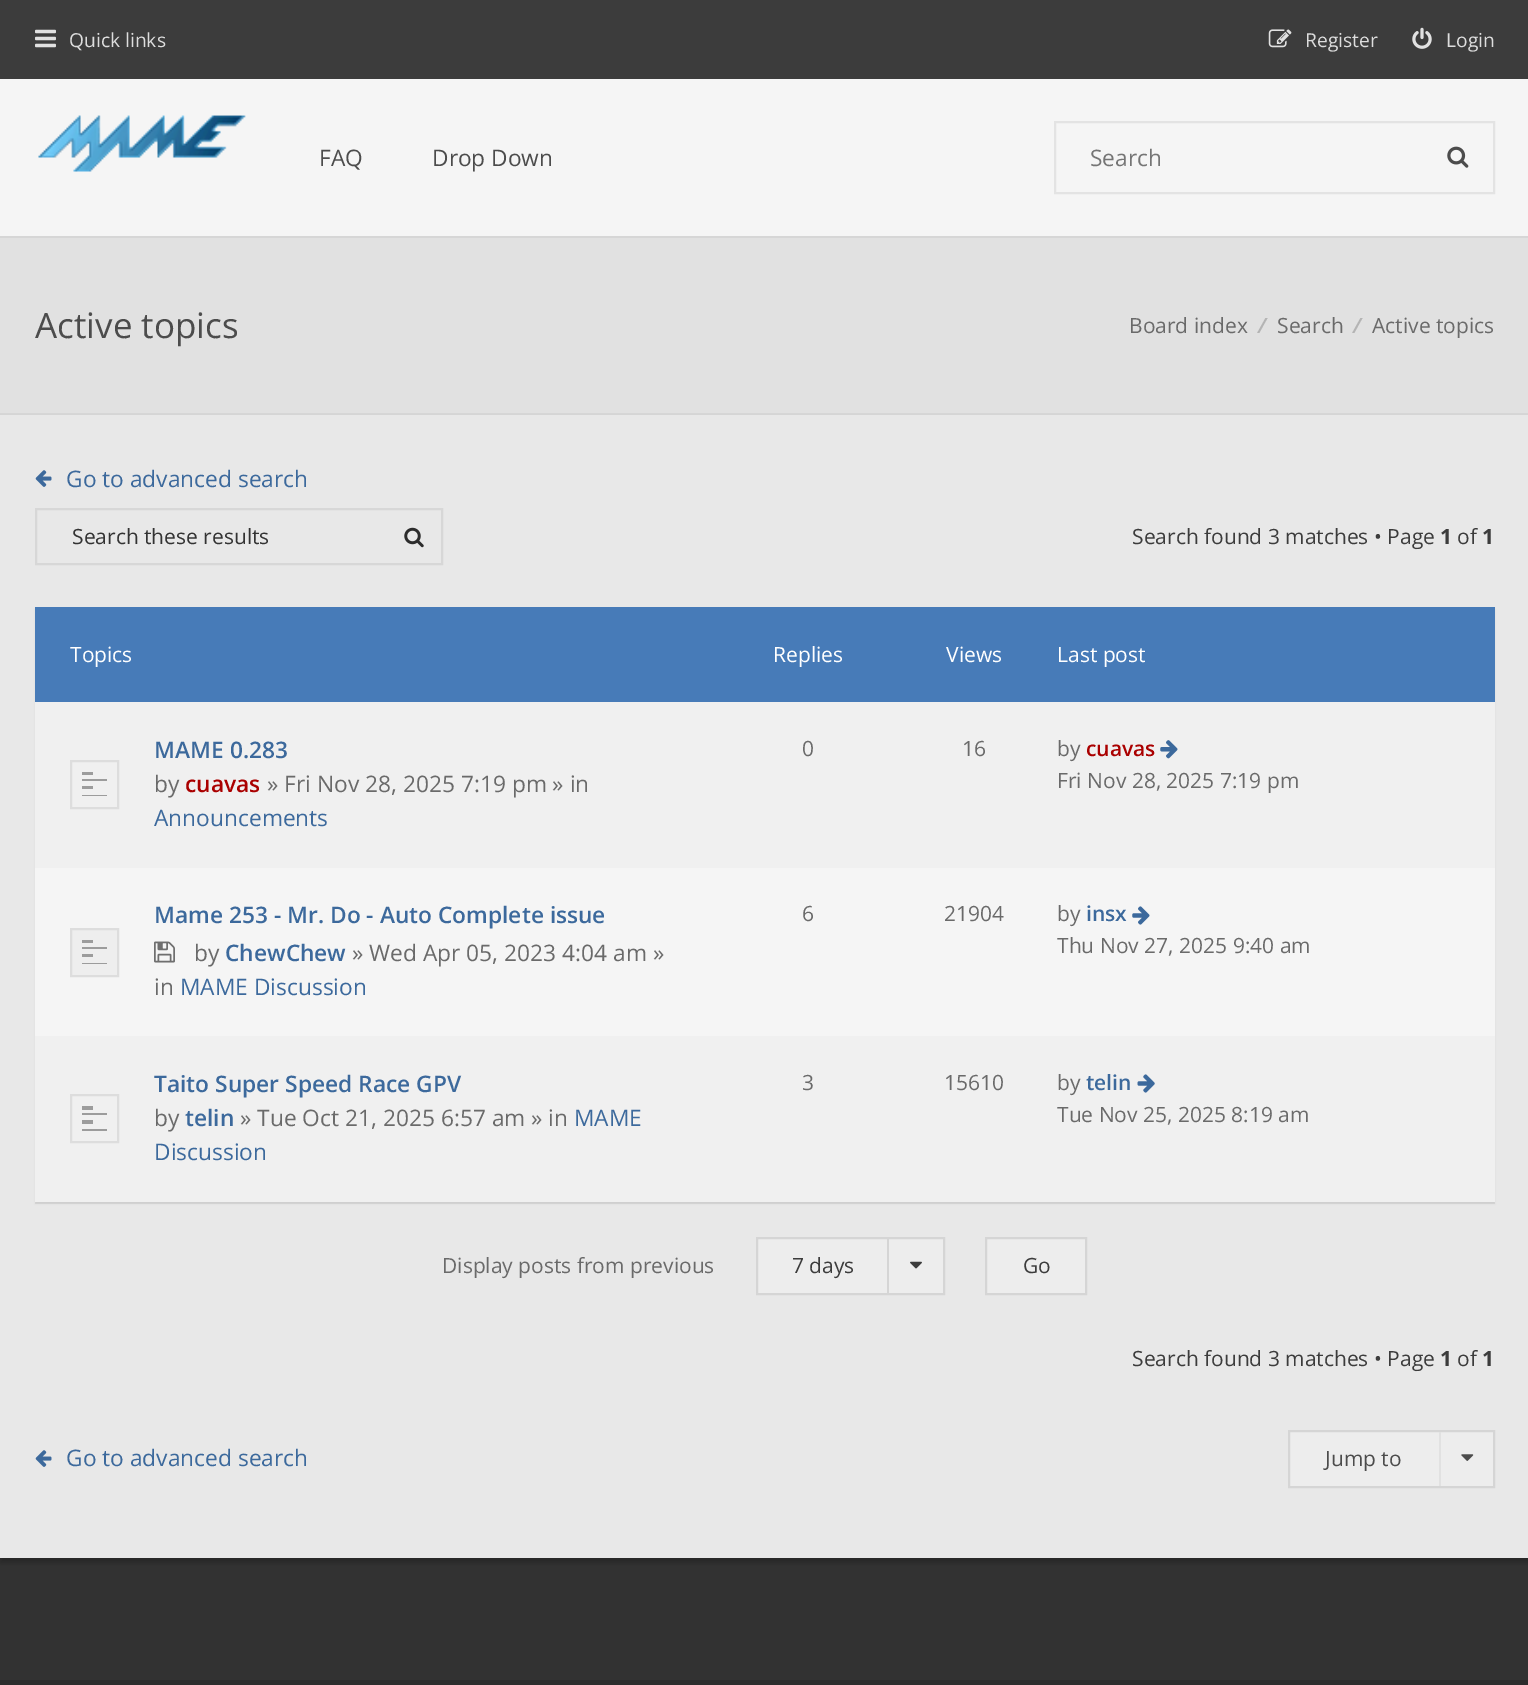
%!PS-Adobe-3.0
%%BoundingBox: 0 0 1528 1685
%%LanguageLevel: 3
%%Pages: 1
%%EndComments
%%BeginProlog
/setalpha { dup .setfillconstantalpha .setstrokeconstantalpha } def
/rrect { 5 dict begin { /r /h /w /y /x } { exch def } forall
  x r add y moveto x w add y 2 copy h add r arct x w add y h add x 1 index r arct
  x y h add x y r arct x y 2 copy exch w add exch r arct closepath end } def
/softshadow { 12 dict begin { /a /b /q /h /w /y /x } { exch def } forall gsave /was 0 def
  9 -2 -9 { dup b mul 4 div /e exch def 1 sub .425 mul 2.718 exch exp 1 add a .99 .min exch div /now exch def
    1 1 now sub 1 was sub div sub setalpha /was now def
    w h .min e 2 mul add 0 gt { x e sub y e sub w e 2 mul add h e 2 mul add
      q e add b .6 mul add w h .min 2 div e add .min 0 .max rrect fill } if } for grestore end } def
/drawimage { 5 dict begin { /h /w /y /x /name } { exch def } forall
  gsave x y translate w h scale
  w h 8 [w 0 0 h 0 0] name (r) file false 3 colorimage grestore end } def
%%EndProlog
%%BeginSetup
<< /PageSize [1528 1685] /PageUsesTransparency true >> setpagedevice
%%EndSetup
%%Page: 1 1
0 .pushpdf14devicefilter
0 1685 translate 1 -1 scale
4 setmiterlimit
0.91 setgray
0 0 1528 1685 rectfill
0.235 setgray
0 0 1528 79 rectfill
(images/1.raw) 35 29 21 19 drawimage
(images/2.raw) 1268 29 24 19 drawimage
(images/3.raw) 1412 27 20 22 drawimage
0.961 setgray
0 79 1528 157 rectfill
(images/4.raw) 38 115 208 57 drawimage
0.89 setgray
2 setlinewidth
1055 122 439 71 rectstroke
(images/5.raw) 1447 146 22 22 drawimage
0.882 setgray
0 238 1528 175 rectfill
0.839 setgray
0 236 1528 2 rectfill
0 413 1528 2 rectfill
0.196 setgray
0 1558 1528 122 rectfill
gsave
newpath 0 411 moveto 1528 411 lineto 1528 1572 lineto 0 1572 lineto closepath 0 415 moveto 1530 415 lineto 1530 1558 lineto 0 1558 lineto closepath eoclip newpath
0 setgray
0 420 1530 1143 0 2.5 0.2 softshadow
grestore
(images/6.raw) 35 470 17 17 drawimage
0.843 setgray
36 509 406 55 rectstroke
(images/7.raw) 404 527 20 21 drawimage
0.863 setgray
newpath 35 1202 moveto 35 1204 lineto 1495 1204 lineto 1495 609 lineto 1494 609 lineto 1494 1202 lineto closepath fill
0 setgray
35 609 1460 595 0 1 0.05 softshadow
0.278 0.482 0.722 setrgbcolor
35 607 1460 95 rectfill
0.941 setgray
35 702 1460 166 rectfill
0.867 setgray
71 761 47 47 rectstroke
0.612 setgray
82 772 11 3 rectfill
82 779 25 2 rectfill
82 795 25 1 rectfill
82 786 11 3 rectfill
(images/8.raw) 1160 740 18 19 drawimage
0.961 setgray
35 868 1460 168 rectfill
0.933 setgray
newpath 71 929 moveto 118 929 lineto 118 976 lineto 71 976 lineto closepath gsave fill grestore
0.867 setgray
stroke
0.612 setgray
82 940 11 3 rectfill
82 947 25 2 rectfill
82 963 25 1 rectfill
82 954 11 3 rectfill
(images/9.raw) 154 941 21 22 drawimage
(images/10.raw) 1132 906 18 19 drawimage
0.941 setgray
35 1036 1460 166 rectfill
0.867 setgray
71 1095 47 47 rectstroke
0.612 setgray
82 1106 11 4 rectfill
82 1113 25 2 rectfill
82 1129 25 2 rectfill
82 1120 11 4 rectfill
(images/11.raw) 1137 1074 18 19 drawimage
0.929 setgray
newpath 757 1238 moveto 944 1238 lineto 944 1294 lineto 757 1294 lineto closepath gsave fill grestore
0.835 setgray
stroke
887 1239 2 54 rectfill
(images/12.raw) 910 1261 12 8 drawimage
0.929 setgray
newpath 986 1238 moveto 1086 1238 lineto 1086 1294 lineto 986 1294 lineto closepath gsave fill grestore
0.835 setgray
stroke
(images/13.raw) 35 1450 17 17 drawimage
0.929 setgray
newpath 1289 1431 moveto 1494 1431 lineto 1494 1487 lineto 1289 1487 lineto closepath gsave fill grestore
0.835 setgray
stroke
0.882 setgray
1439 1432 2 54 rectfill
(images/14.raw) 1461 1454 13 7 drawimage
0.173 setgray
0 1680 1528 5 rectfill
/OpenSans-Regular [19.25 0 0 -19.25 0 0] selectfont
0.867 setgray
69 47 moveto (Quick links) show
1305 47 moveto (Register) show
1446 47 moveto (Login) show
/OpenSans-Regular [22.75 0 0 -22.75 0 0] selectfont
0.298 setgray
319 166 moveto (FAQ) show
432 166 moveto (Drop Down) show
0.459 setgray
1090 166 moveto (Search) show
/OpenSans-Regular [35 0 0 -35 0 0] selectfont
0.298 setgray
35 338 moveto (Active topics) show
/OpenSans-Regular [21 0 0 -21 0 0] selectfont
0.416 setgray
1129 333 moveto (Board index) show
/OpenSans-Bold [21 0 0 -21 0 0] selectfont
0.706 setgray
1261 333 moveto (⁄) show
/OpenSans-Regular [21 0 0 -21 0 0] selectfont
0.416 setgray
1277 333 moveto (Search) show
/OpenSans-Bold [21 0 0 -21 0 0] selectfont
0.706 setgray
1356 333 moveto (⁄) show
/OpenSans-Regular [21 0 0 -21 0 0] selectfont
0.416 setgray
1372 333 moveto (Active topics) show
/OpenSans-Regular [22.75 0 0 -22.75 0 0] selectfont
0.235 0.412 0.612 setrgbcolor
66 487 moveto (Go to advanced search) show
/OpenSans-Regular [21 0 0 -21 0 0] selectfont
0.2 setgray
72 544 moveto (Search these results) show
0.235 setgray
1132 544 moveto (Search found 3 matches • Page) show
/OpenSans-Bold [21 0 0 -21 0 0] selectfont
1440 544 moveto (1) show
/OpenSans-Regular [21 0 0 -21 0 0] selectfont
1457 544 moveto (of) show
/OpenSans-Bold [21 0 0 -21 0 0] selectfont
1482 544 moveto (1) show
/OpenSans-Regular [21 0 0 -21 0 0] selectfont
1 setgray
70 662 moveto (Topics) show
773 662 moveto (Replies) show
946 662 moveto (Views) show
1057 662 moveto (Last post) show
/OpenSans-SemiBold [22.75 0 0 -22.75 0 0] selectfont
0.235 0.412 0.612 setrgbcolor
154 758 moveto (MAME 0.283) show
/OpenSans-Regular [22.75 0 0 -22.75 0 0] selectfont
0.416 setgray
154 792 moveto (by) show
/OpenSans-SemiBold [22.75 0 0 -22.75 0 0] selectfont
0.667 0 0 setrgbcolor
185 792 moveto (cuavas) show
/OpenSans-Regular [22.75 0 0 -22.75 0 0] selectfont
0.416 setgray
267 792 moveto (» Fri Nov 28, 2025 7:19 pm » in) show
0.235 0.412 0.612 setrgbcolor
154 826 moveto (Announcements) show
/OpenSans-Regular [21 0 0 -21 0 0] selectfont
0.416 setgray
802 756 moveto (0) show
962 756 moveto (16) show
1057 756 moveto (by) show
/OpenSans-SemiBold [21 0 0 -21 0 0] selectfont
0.667 0 0 setrgbcolor
1086 756 moveto (cuavas) show
/OpenSans-Regular [21 0 0 -21 0 0] selectfont
0.416 setgray
1057 788 moveto (Fri Nov 28, 2025 7:19 pm) show
/OpenSans-SemiBold [22.75 0 0 -22.75 0 0] selectfont
0.235 0.412 0.612 setrgbcolor
154 923 moveto (Mame 253 - Mr. Do - Auto Complete issue) show
/OpenSans-Regular [22.75 0 0 -22.75 0 0] selectfont
0.416 setgray
194 961 moveto (by) show
/OpenSans-SemiBold [22.75 0 0 -22.75 0 0] selectfont
0.235 0.412 0.612 setrgbcolor
225 961 moveto (ChewChew) show
/OpenSans-Regular [22.75 0 0 -22.75 0 0] selectfont
0.416 setgray
352 961 moveto (» Wed Apr 05, 2023 4:04 am ») show
154 995 moveto (in) show
0.235 0.412 0.612 setrgbcolor
180 995 moveto (MAME Discussion) show
/OpenSans-Regular [21 0 0 -21 0 0] selectfont
0.416 setgray
802 921 moveto (6) show
944 921 moveto (21904) show
1057 921 moveto (by) show
/OpenSans-SemiBold [21 0 0 -21 0 0] selectfont
0.235 0.412 0.612 setrgbcolor
1086 921 moveto (insx) show
/OpenSans-Regular [21 0 0 -21 0 0] selectfont
0.416 setgray
1057 953 moveto (Thu Nov 27, 2025 9:40 am) show
/OpenSans-SemiBold [22.75 0 0 -22.75 0 0] selectfont
0.235 0.412 0.612 setrgbcolor
154 1092 moveto (Taito Super Speed Race GPV) show
/OpenSans-Regular [22.75 0 0 -22.75 0 0] selectfont
0.416 setgray
154 1126 moveto (by) show
/OpenSans-SemiBold [22.75 0 0 -22.75 0 0] selectfont
0.235 0.412 0.612 setrgbcolor
185 1126 moveto (telin) show
/OpenSans-Regular [22.75 0 0 -22.75 0 0] selectfont
0.416 setgray
240 1126 moveto (» Tue Oct 21, 2025 6:57 am » in) show
0.235 0.412 0.612 setrgbcolor
574 1126 moveto (MAME) show
154 1160 moveto (Discussion) show
/OpenSans-Regular [21 0 0 -21 0 0] selectfont
0.416 setgray
802 1090 moveto (3) show
944 1090 moveto (15610) show
1057 1090 moveto (by) show
/OpenSans-SemiBold [21 0 0 -21 0 0] selectfont
0.235 0.412 0.612 setrgbcolor
1086 1090 moveto (telin) show
/OpenSans-Regular [21 0 0 -21 0 0] selectfont
0.416 setgray
1057 1122 moveto (Tue Nov 25, 2025 8:19 am) show
442 1273 moveto (Display posts from previous) show
0.235 setgray
792 1273 moveto (7 days) show
1023 1273 moveto (Go) show
1132 1366 moveto (Search found 3 matches • Page) show
/OpenSans-Bold [21 0 0 -21 0 0] selectfont
1440 1366 moveto (1) show
/OpenSans-Regular [21 0 0 -21 0 0] selectfont
1457 1366 moveto (of) show
/OpenSans-Bold [21 0 0 -21 0 0] selectfont
1482 1366 moveto (1) show
/OpenSans-Regular [22.75 0 0 -22.75 0 0] selectfont
0.235 0.412 0.612 setrgbcolor
66 1466 moveto (Go to advanced search) show
/OpenSans-Regular [21 0 0 -21 0 0] selectfont
0.298 setgray
1325 1466 moveto (Jump to) show
.poppdf14devicefilter showpage
%%EOF
